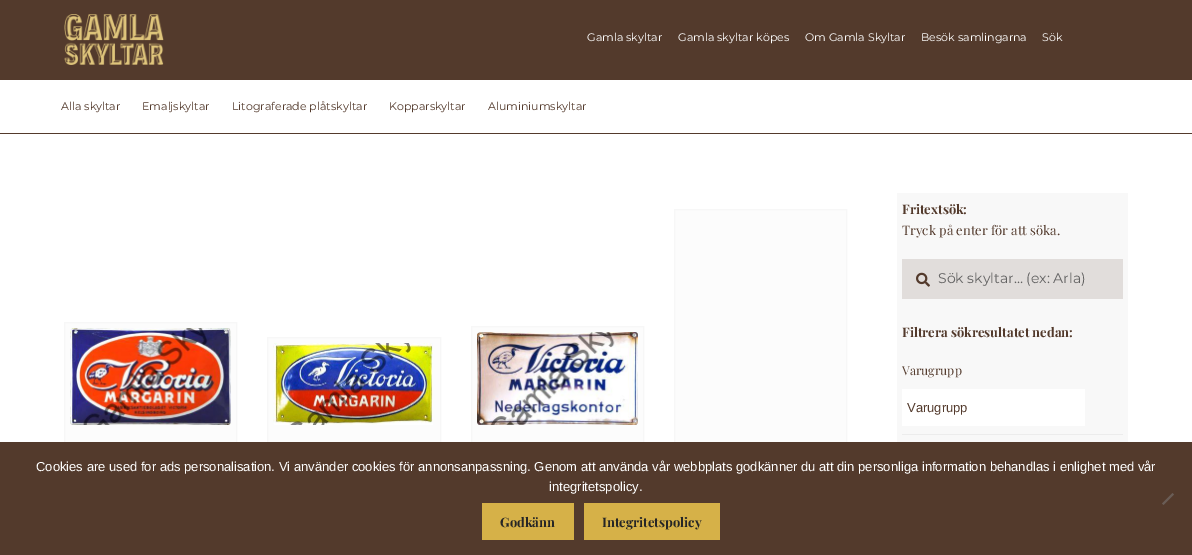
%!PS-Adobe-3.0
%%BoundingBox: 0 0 1192 555
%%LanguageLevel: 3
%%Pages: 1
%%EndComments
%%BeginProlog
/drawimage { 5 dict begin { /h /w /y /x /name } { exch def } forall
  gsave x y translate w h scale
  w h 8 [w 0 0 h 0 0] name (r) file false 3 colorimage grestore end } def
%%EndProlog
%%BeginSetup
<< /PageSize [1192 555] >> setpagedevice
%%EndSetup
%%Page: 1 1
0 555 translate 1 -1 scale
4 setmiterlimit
1 setgray
0 0 1192 555 rectfill
0.325 0.227 0.173 setrgbcolor
0 0 1192 80 rectfill
(images/1.raw) 64 14 100 51 drawimage
0 133 1192 1 rectfill
0.988 setgray
65 323 171 119 rectfill
0.969 setgray
64.5 322.5 172 147 rectstroke
(images/2.raw) 70 328 161 97 drawimage
0.988 setgray
268 338 172 104 rectfill
0.969 setgray
267.5 337.5 173 132 rectstroke
(images/3.raw) 273 343 160 82 drawimage
0.988 setgray
472 327 171 115 rectfill
0.969 setgray
471.5 326.5 172 143 rectstroke
(images/4.raw) 477 332 161 93 drawimage
0.988 setgray
675 210 171 232 rectfill
0.969 setgray
674.5 209.5 172 260 rectstroke
0.973 setgray
897 193 231 249 rectfill
0.882 0.867 0.859 setrgbcolor
902 259 221 40 rectfill
(images/5.raw) 916 272 14 15 drawimage
0.925 setgray
902 434 221 1 rectfill
1 setgray
902 389 183 37 rectfill
0.325 0.227 0.173 setrgbcolor
0 442 1192 113 rectfill
0.416 0.365 0.337 setrgbcolor
newpath 1172.5 493 moveto 1174 494.5 lineto 1163.5 505 lineto 1162 503.5 lineto closepath fill
0.839 0.694 0.282 setrgbcolor
482 503 92 37 rectfill
584 503 136 37 rectfill
/Montserrat-Regular [11 0 0 -11 0 0] selectfont
1 setgray
587 41 moveto (Gamla skyltar) show
678 41 moveto (Gamla skyltar köpes) show
805 41 moveto (Om Gamla Skyltar) show
921 41 moveto (Besök samlingarna) show
1042 41 moveto (Sök) show
0.325 0.227 0.173 setrgbcolor
61 110 moveto (Alla skyltar) show
142 110 moveto (Emaljskyltar) show
232 110 moveto (Litograferade plåtskyltar) show
389 110 moveto (Kopparskyltar) show
488 110 moveto (Aluminiumskyltar) show
/PlayfairDisplay-Bold [13 0 0 -13 0 0] selectfont
902 214 moveto (Fritextsök:) show
/PlayfairDisplay-Regular [13 0 0 -13 0 0] selectfont
902 235 moveto (Tryck på enter för att söka.) show
/Montserrat-Regular [14 0 0 -14 0 0] selectfont
0.38 setgray
938 283 moveto (Sök skyltar… \(ex: Arla\)) show
/PlayfairDisplay-Bold [13 0 0 -13 0 0] selectfont
0.325 0.227 0.173 setrgbcolor
902 337 moveto (Filtrera sökresultatet nedan:) show
/PlayfairDisplay-Regular [12.25 0 0 -12.25 0 0] selectfont
902 375 moveto (Varugrupp) show
/LiberationSans-Regular [13 0 0 -13 0 0] selectfont
907 412 moveto (Varugrupp) show
1 setgray
36 471 moveto (Cookies are used for ads personalisation. Vi använder cookies för annonsanpassning. Genom att använda vår webbplats godkänner du att din personliga information behandlas i enlighet med vår) show
549 491 moveto (integritetspolicy.) show
/PlayfairDisplay-Bold [13 0 0 -13 0 0] selectfont
0.149 setgray
500 527 moveto (Godkänn) show
602 527 moveto (Integritetspolicy) show
showpage
%%EOF
